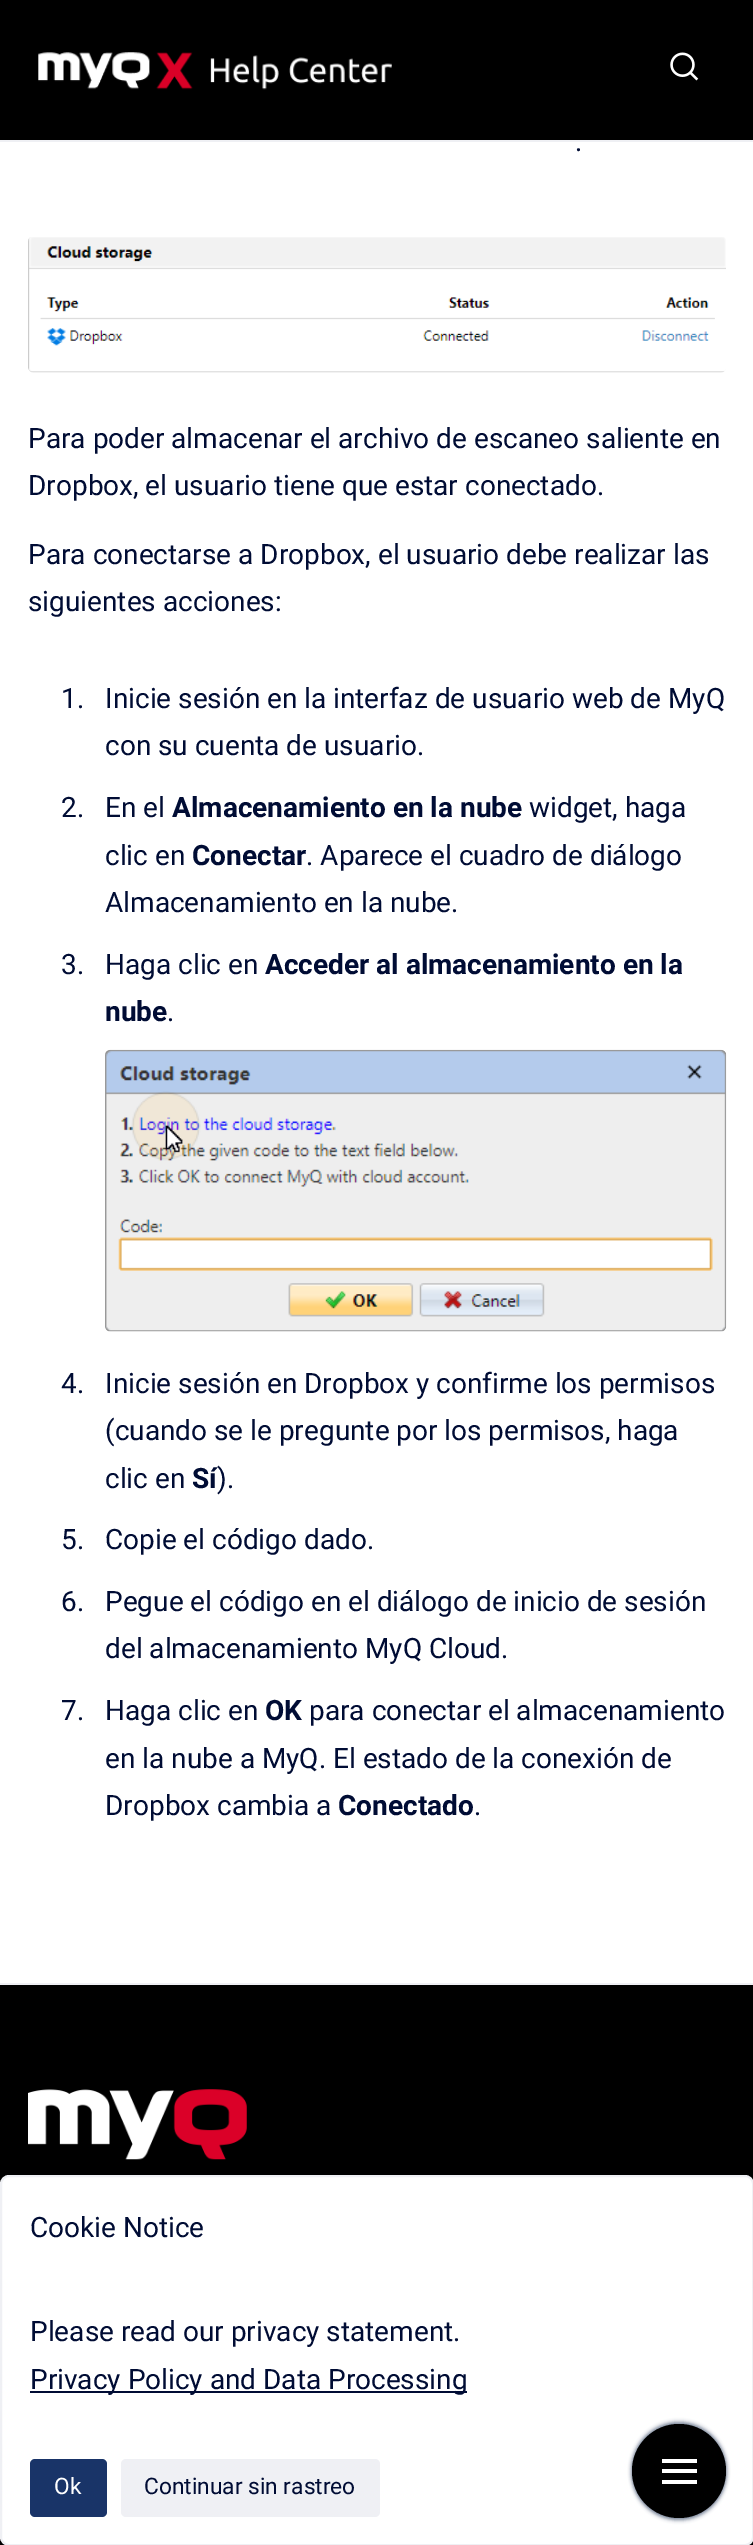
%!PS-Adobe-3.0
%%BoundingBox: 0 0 753 2545
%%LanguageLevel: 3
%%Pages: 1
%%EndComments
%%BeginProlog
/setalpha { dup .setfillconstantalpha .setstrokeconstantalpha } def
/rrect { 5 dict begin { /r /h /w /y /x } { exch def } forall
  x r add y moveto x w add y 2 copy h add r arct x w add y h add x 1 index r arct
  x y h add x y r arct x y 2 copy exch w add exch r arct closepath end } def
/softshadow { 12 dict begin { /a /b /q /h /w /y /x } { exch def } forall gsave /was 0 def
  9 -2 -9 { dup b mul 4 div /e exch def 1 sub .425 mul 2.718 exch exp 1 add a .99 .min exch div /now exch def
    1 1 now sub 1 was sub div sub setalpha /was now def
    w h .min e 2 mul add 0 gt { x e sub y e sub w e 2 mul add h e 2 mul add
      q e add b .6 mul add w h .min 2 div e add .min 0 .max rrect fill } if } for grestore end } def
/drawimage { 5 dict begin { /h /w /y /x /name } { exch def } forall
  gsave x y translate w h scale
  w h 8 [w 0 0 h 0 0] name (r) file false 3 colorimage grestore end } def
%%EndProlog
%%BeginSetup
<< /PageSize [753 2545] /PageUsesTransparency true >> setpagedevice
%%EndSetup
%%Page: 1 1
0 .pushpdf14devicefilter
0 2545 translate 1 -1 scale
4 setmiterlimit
1 setgray
0 0 753 2545 rectfill
0 setgray
0 0 753 140 rectfill
0.937 0.941 0.957 setrgbcolor
0 140 753 2 rectfill
(images/1.raw) 38 52 354 38 drawimage
(images/2.raw) 670 52 29 29 drawimage
(images/3.raw) 28 237 698 136 drawimage
(images/4.raw) 105 1049 622 283 drawimage
0 setgray
0 1985 753 560 rectfill
0.937 0.941 0.957 setrgbcolor
0 1983 753 2 rectfill
(images/5.raw) 28 2089 219 71 drawimage
1 setgray
1 2176 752 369 8 rrect gsave fill grestore
0.937 0.941 0.957 setrgbcolor
2 setlinewidth
stroke
0 0.047 0.204 setrgbcolor
30 2391 437 2 rectfill
0.098 0.204 0.408 setrgbcolor
30 2459 77 58 5 rrect fill
0.937 0.941 0.957 setrgbcolor
121 2459 259 58 5 rrect fill
0.478 0.525 0.604 setrgbcolor
632 2422 94 95 47 2 1 softshadow
632 2426 94 94 47 2 1 softshadow
0 setgray
newpath 679 2471 47 0 360 arc closepath fill
1 setgray
662 2459 35 4 rectfill
662 2469 35 4 rectfill
662 2480 35 4 rectfill
/Roboto-Regular [28 0 0 -28 0 0] selectfont
0 0.047 0.204 setrgbcolor
575 151 moveto (.) show
28 448 moveto (Para poder almacenar el archivo de escaneo saliente en) show
28 495 moveto (Dropbox, el usuario tiene que estar conectado.) show
28 564 moveto (Para conectarse a Dropbox, el usuario debe realizar las) show
28 611 moveto (siguientes acciones:) show
61 708 moveto (1.) show
105 708 moveto (Inicie sesión en la interfaz de usuario web de MyQ) show
105 755 moveto (con su cuenta de usuario.) show
61 817 moveto (2.) show
105 817 moveto (En el) show
/Roboto-Bold [28 0 0 -28 0 0] selectfont
172 817 moveto (Almacenamiento en la nube) show
/Roboto-Regular [28 0 0 -28 0 0] selectfont
529 817 moveto (widget, haga) show
105 865 moveto (clic en) show
/Roboto-Bold [28 0 0 -28 0 0] selectfont
192 865 moveto (Conectar) show
/Roboto-Regular [28 0 0 -28 0 0] selectfont
306 865 moveto (. Aparece el cuadro de diálogo) show
105 912 moveto (Almacenamiento en la nube.) show
61 974 moveto (3.) show
105 974 moveto (Haga clic en) show
/Roboto-Bold [28 0 0 -28 0 0] selectfont
265 974 moveto (Acceder al almacenamiento en la) show
105 1021 moveto (nube) show
/Roboto-Regular [28 0 0 -28 0 0] selectfont
167 1021 moveto (.) show
61 1393 moveto (4.) show
105 1393 moveto (Inicie sesión en Dropbox y confirme los permisos) show
105 1440 moveto (\(cuando se le pregunte por los permisos, haga) show
105 1488 moveto (clic en) show
/Roboto-Bold [28 0 0 -28 0 0] selectfont
192 1488 moveto (Sí) show
/Roboto-Regular [28 0 0 -28 0 0] selectfont
217 1488 moveto (\).) show
61 1549 moveto (5.) show
105 1549 moveto (Copie el código dado.) show
61 1611 moveto (6.) show
105 1611 moveto (Pegue el código en el diálogo de inicio de sesión) show
105 1658 moveto (del almacenamiento MyQ Cloud.) show
61 1720 moveto (7.) show
105 1720 moveto (Haga clic en) show
/Roboto-Bold [28 0 0 -28 0 0] selectfont
265 1720 moveto (OK) show
/Roboto-Regular [28 0 0 -28 0 0] selectfont
309 1720 moveto (para conectar el almacenamiento) show
105 1768 moveto (en la nube a MyQ. El estado de la conexión de) show
105 1815 moveto (Dropbox cambia a) show
/Roboto-Bold [28 0 0 -28 0 0] selectfont
338 1815 moveto (Conectado) show
/Roboto-Regular [28 0 0 -28 0 0] selectfont
474 1815 moveto (.) show
30 2237 moveto (Cookie Notice) show
30 2341 moveto (Please read our privacy statement.) show
30 2389 moveto (Privacy Policy and Data Processing) show
/Roboto-Regular [22.75 0 0 -22.75 0 0] selectfont
1 setgray
54 2494 moveto (Ok) show
0 0.047 0.204 setrgbcolor
144 2494 moveto (Continuar sin rastreo) show
.poppdf14devicefilter showpage
%%EOF
